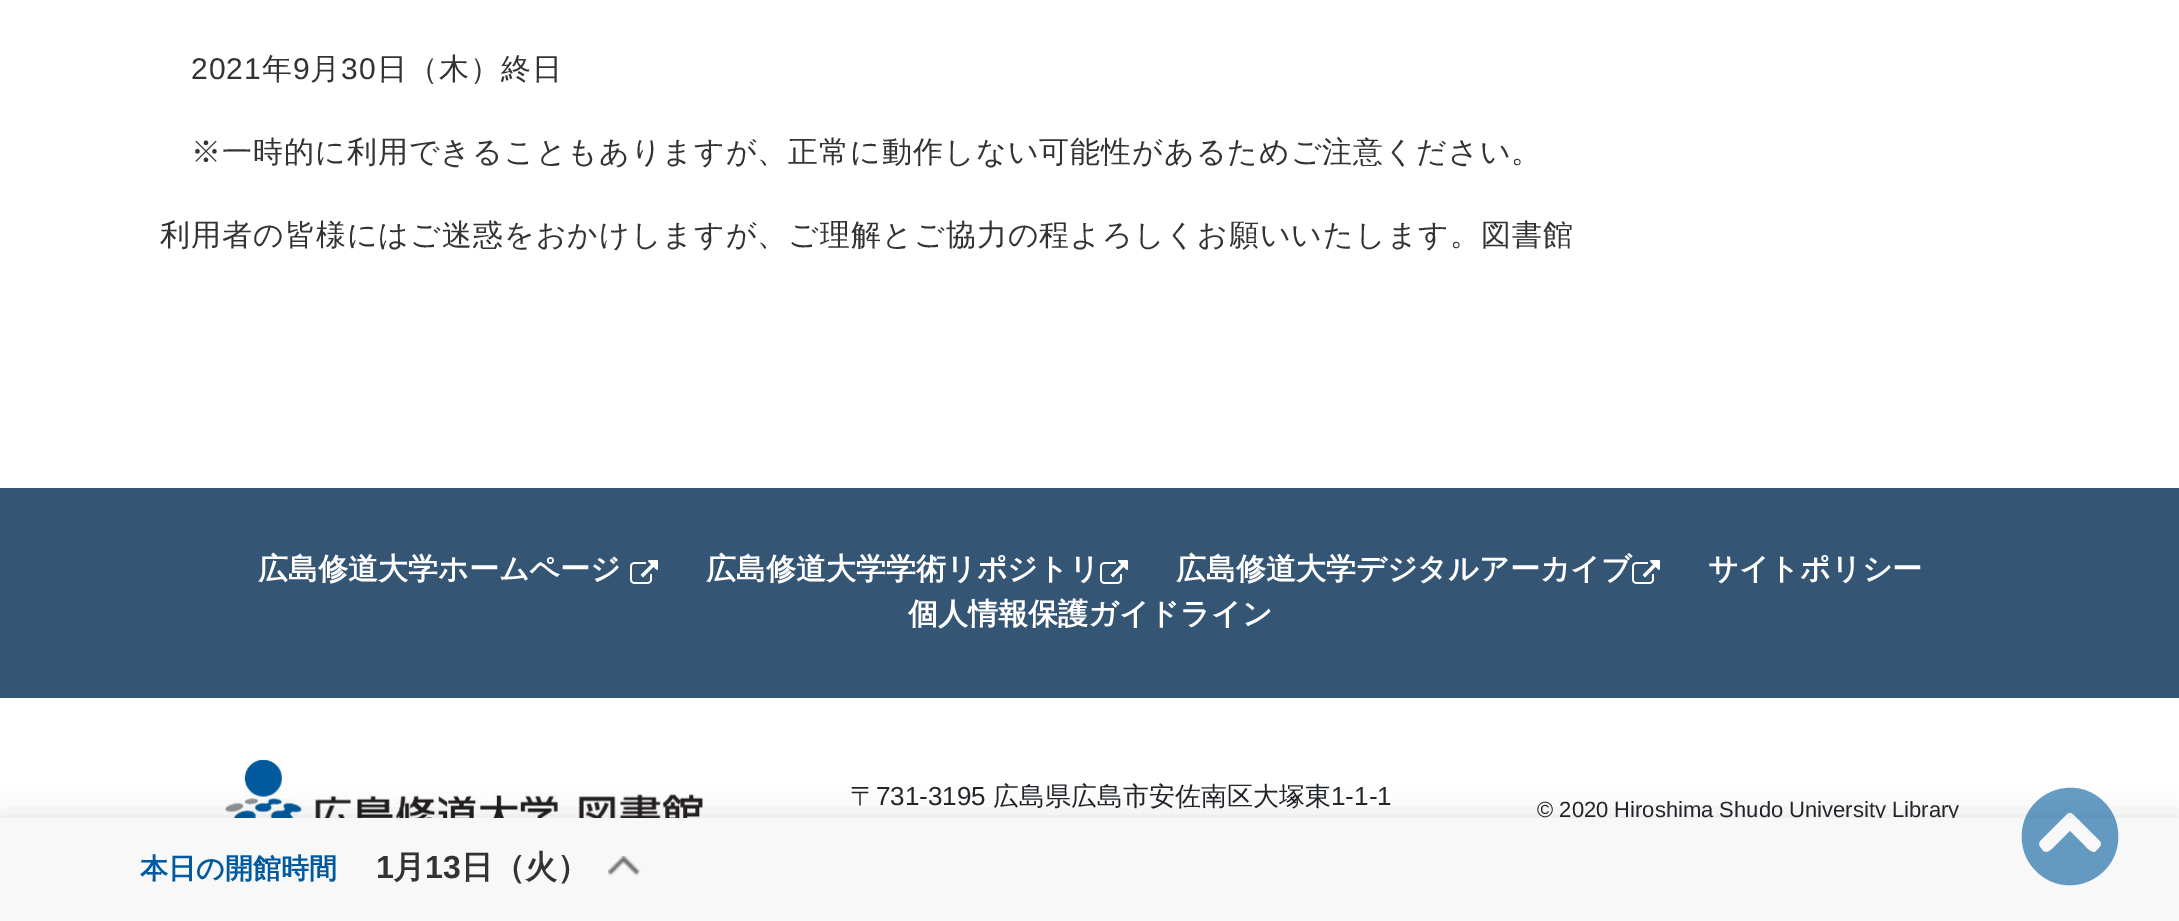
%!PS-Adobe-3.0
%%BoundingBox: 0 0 2179 921
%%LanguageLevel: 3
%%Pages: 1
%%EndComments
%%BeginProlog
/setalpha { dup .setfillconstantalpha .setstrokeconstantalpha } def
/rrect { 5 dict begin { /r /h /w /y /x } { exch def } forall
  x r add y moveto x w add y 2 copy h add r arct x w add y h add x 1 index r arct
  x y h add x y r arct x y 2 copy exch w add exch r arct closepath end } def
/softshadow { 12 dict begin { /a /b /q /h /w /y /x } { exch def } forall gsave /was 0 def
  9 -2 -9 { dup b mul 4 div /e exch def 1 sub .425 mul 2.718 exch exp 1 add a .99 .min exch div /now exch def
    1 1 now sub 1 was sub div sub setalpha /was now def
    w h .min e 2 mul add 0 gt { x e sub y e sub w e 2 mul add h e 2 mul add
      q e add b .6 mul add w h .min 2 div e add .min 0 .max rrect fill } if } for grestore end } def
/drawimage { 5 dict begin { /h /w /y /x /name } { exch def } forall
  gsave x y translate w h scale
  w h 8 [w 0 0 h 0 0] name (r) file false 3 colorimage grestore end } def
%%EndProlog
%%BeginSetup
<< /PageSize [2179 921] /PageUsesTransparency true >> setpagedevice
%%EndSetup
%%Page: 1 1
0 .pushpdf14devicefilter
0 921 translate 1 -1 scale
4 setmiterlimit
1 setgray
0 0 2179 921 rectfill
(images/3.raw) 225 758 479 60 drawimage
0 setgray
0 818 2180 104 0 15 0.12 softshadow
0.208 0.333 0.455 setrgbcolor
0 488 2179 210 rectfill
(images/2.raw) 630 560 28 24 drawimage
(images/2.raw) 1100 560 28 24 drawimage
(images/2.raw) 1632 560 28 24 drawimage
/LiberationSans-Regular [30 0 0 -30 0 0] selectfont
0.2 setgray
191 79 moveto 1 0 (2021) ashow
/WenQuanYiZenHei-Medium [30 0 0 -30 0 0] selectfont
262 79 moveto 1 0 (年) ashow
/LiberationSans-Regular [30 0 0 -30 0 0] selectfont
293 79 moveto 1 0 (9) ashow
/WenQuanYiZenHei-Medium [30 0 0 -30 0 0] selectfont
310 79 moveto 1 0 (月) ashow
/LiberationSans-Regular [30 0 0 -30 0 0] selectfont
341 79 moveto 1 0 (30) ashow
/WenQuanYiZenHei-Medium [30 0 0 -30 0 0] selectfont
377 79 moveto 1 0 (日（木）終日) ashow
191 162 moveto 1 0 (※一時的に利用できることもありますが、正常に動作しない可能性があるためご注意ください。) ashow
160 245 moveto 1 0 (利用者の皆様にはご迷惑をおかけしますが、ご理解とご協力の程よろしくお願いいたします。図書館) ashow
/WenQuanYiZenHei-Bold [30 0 0 -30 0 0] selectfont
1 setgray
258 579 moveto (広島修道大学ホームページ) show
706 579 moveto (広島修道大学学術リポジトリ) show
1176 579 moveto (広島修道大学デジタルアーカイブ) show
1708 579 moveto (サイトポリシー) show
908 624 moveto (個人情報保護ガイドライン) show
/WenQuanYiZenHei-Medium [26 0 0 -26 0 0] selectfont
0.129 0.145 0.161 setrgbcolor
850 805 moveto (〒) show
/LiberationSans-Regular [26 0 0 -26 0 0] selectfont
876 805 moveto (731-3195) show
/WenQuanYiZenHei-Medium [26 0 0 -26 0 0] selectfont
993 805 moveto (広島県広島市安佐南区大塚東) show
/LiberationSans-Regular [26 0 0 -26 0 0] selectfont
1331 805 moveto (1-1-1) show
/LiberationSans-Regular [22 0 0 -22 0 0] selectfont
1537 817 moveto (© 2020 Hiroshima Shudo University Library) show
0.973 setgray
0 818 2179 103 rectfill
(images/1.raw) 608 856 33 20 drawimage
/WenQuanYiZenHei-Bold [32 0 0 -32 0 0] selectfont
0.2 setgray
461 878 moveto (日（火）) show
/LiberationSans-Bold [32 0 0 -32 0 0] selectfont
425 878 moveto (13) show
/WenQuanYiZenHei-Bold [32 0 0 -32 0 0] selectfont
393 878 moveto (月) show
/LiberationSans-Bold [32 0 0 -32 0 0] selectfont
376 878 moveto (1) show
/WenQuanYiZenHei-Bold [28 0 0 -28 0 0] selectfont
0.004 0.353 0.62 setrgbcolor
140 878 moveto (本日の開館時間) show
0.6 setalpha
newpath 2036 871 moveto 2028 863 2023 853 2022 841 curveto 2018 796 2072 770 2104 802 curveto 2112 810 2117 820 2118 832 curveto 2122 877 2068 903 2036 871 curveto closepath 2067 814 moveto 2040 841 lineto 2037 845 2041 848 2043 851 curveto 2048 855 2054 847 2057 844 curveto 2070 831 lineto 2083 844 lineto 2085 846 2090 853 2095 852 curveto 2099 848 lineto 2104 843 2100 841 2095 836 curveto 2078 819 lineto 2075 816 2071 810 2067 814 curveto closepath fill
.poppdf14devicefilter showpage
%%EOF
